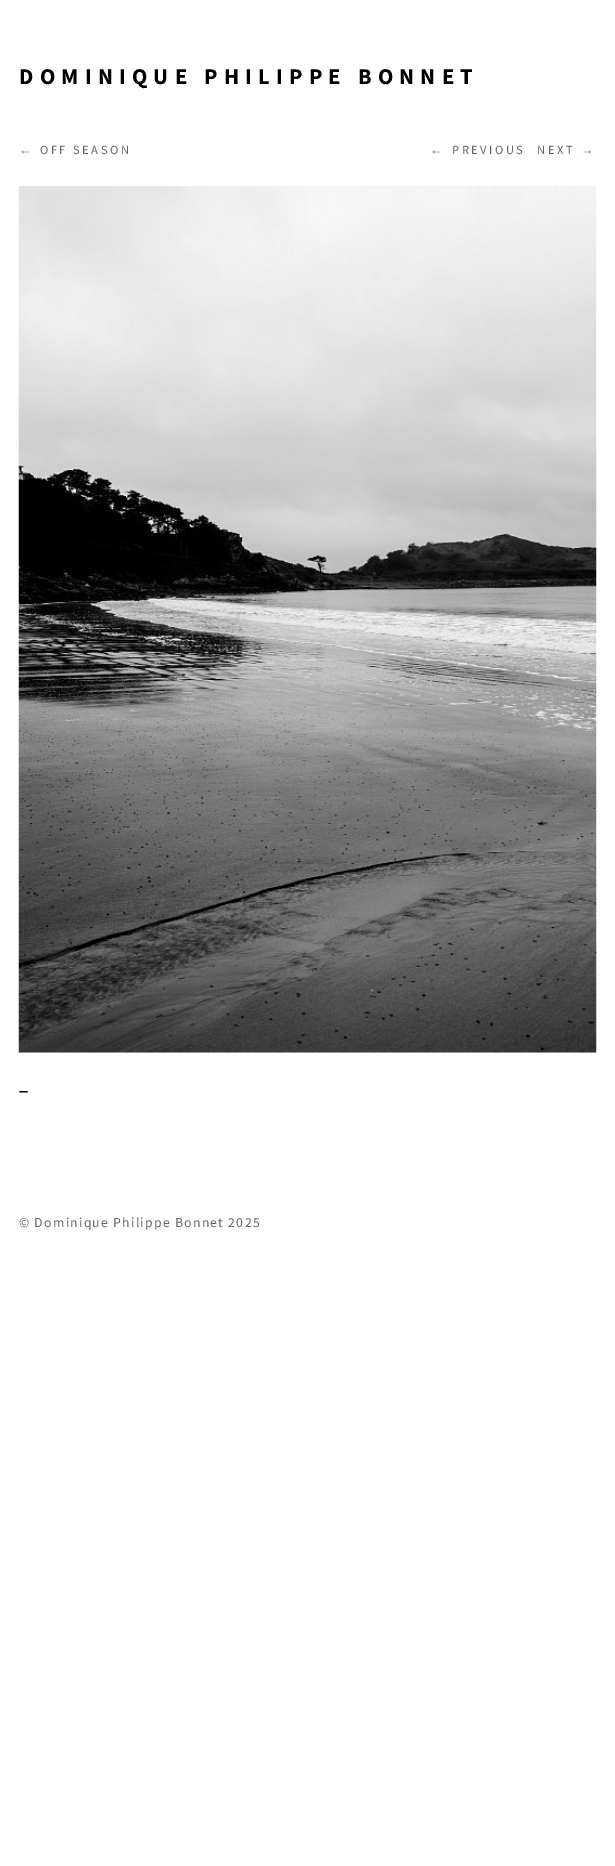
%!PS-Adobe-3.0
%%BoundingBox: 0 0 615 1866
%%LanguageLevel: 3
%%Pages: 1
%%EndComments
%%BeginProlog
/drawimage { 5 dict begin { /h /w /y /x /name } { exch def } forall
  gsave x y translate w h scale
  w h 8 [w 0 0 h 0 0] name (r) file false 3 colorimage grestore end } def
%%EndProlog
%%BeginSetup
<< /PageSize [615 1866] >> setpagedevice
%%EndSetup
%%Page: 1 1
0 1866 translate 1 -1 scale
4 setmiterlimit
1 setgray
0 0 615 1866 rectfill
0.957 setgray
19 186 577 867 rectfill
(images/1.raw) 18 186 579 867 drawimage
/SourceSansPro-Bold [22.5 0 0 -22.5 0 0] selectfont
0 setgray
19 84 moveto 6.25 0 (DOMINIQUE PHILIPPE BONNET) ashow
/LiberationSans-Regular [12.5 0 0 -12.5 0 0] selectfont
0.4 setgray
19 154 moveto 2.5 0 (←) ashow
/SourceSansPro-Regular [12.5 0 0 -12.5 0 0] selectfont
40 154 moveto 2.5 0 (OFF SEASON) ashow
/LiberationSans-Regular [12.5 0 0 -12.5 0 0] selectfont
430 154 moveto 2.5 0 (←) ashow
/SourceSansPro-Regular [12.5 0 0 -12.5 0 0] selectfont
452 154 moveto 2.5 0 (PREVIOUS) ashow
537 154 moveto 2.5 0 (NEXT) ashow
/LiberationSans-Regular [12.5 0 0 -12.5 0 0] selectfont
581 154 moveto 2.5 0 (→) ashow
/SourceSansPro-Bold [18 0 0 -18 0 0] selectfont
0 setgray
19 1090 moveto 1.25 0 (_) ashow
/SourceSansPro-Regular [13.75 0 0 -13.75 0 0] selectfont
0.4 setgray
19 1227 moveto 1.25 0 (© Dominique Philippe Bonnet 2025) ashow
showpage
%%EOF
